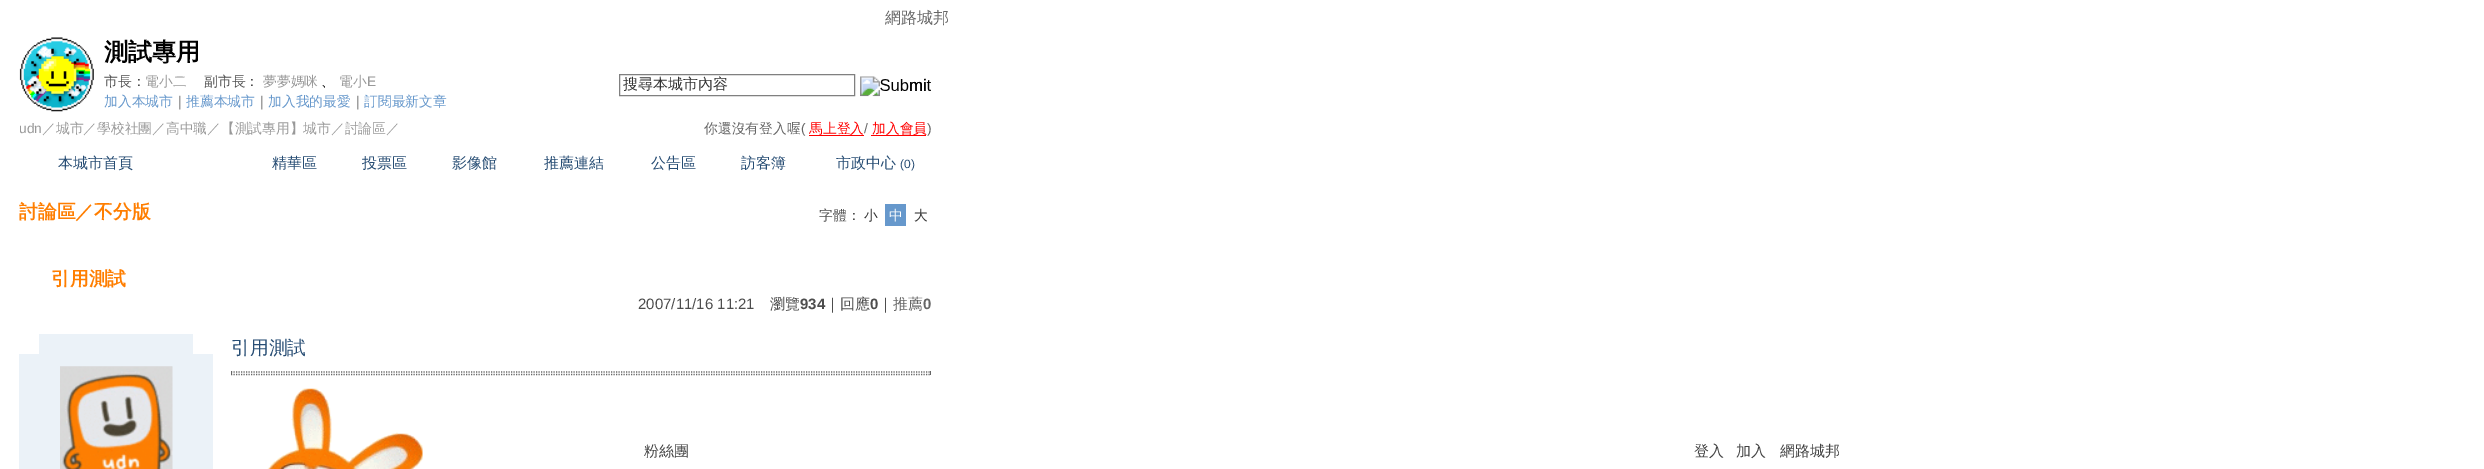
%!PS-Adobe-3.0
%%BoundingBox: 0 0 2484 469
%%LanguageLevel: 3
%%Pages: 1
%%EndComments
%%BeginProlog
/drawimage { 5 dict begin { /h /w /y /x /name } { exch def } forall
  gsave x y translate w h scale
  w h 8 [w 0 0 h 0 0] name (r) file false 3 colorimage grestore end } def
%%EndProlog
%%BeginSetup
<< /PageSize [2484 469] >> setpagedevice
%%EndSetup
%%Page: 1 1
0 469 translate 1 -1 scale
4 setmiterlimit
1 setgray
0 0 2484 469 rectfill
(images/1.raw) 19 37 75 75 drawimage
0.502 setgray
619.5 74.5 235 21 rectstroke
(images/2.raw) 860 76 71 21 drawimage
1 0 0 setrgbcolor
809 135 55 1 rectfill
871 135 55 1 rectfill
0.4 0.596 0.8 setrgbcolor
885 204 21 22 rectfill
0.922 0.949 0.973 setrgbcolor
39 334 154 20 rectfill
19 354 194 115 rectfill
(images/3.raw) 60 366 113 103 drawimage
0.4 setgray
1.2 setlinewidth
[1.25 1.25] 0 setdash
newpath 231 372 moveto 931 372 lineto stroke
930 371 1 4 rectfill
newpath 231 374.5 moveto 931 374.5 lineto stroke
231 371 1 4 rectfill
(images/4.raw) 267 388 156 81 drawimage
/WenQuanYiZenHei-Medium [16 0 0 -16 0 0] selectfont
885 23 moveto (網路城邦) show
/WenQuanYiZenHei-Bold [24 0 0 -24 0 0] selectfont
0 setgray
104 60 moveto (測試專用) show
/WenQuanYiZenHei-Medium [13.75 0 0 -13.75 0 0] selectfont
0.302 setgray
104 86 moveto (市長：) show
0.6 setgray
145 86 moveto (電小二) show
0.302 setgray
204 86 moveto (副市長：) show
0.6 setgray
263 86 moveto (夢夢媽咪) show
0 setgray
321 86 moveto (、) show
0.6 setgray
339 86 moveto (電小) show
/LiberationSans-Regular [13.75 0 0 -13.75 0 0] selectfont
367 86 moveto (E) show
/WenQuanYiZenHei-Medium [13.75 0 0 -13.75 0 0] selectfont
0.4 0.596 0.8 setrgbcolor
104 106 moveto (加入本城市) show
0.302 setgray
173 106 moveto (｜) show
0.4 0.596 0.8 setrgbcolor
186 106 moveto (推薦本城市) show
0.302 setgray
255 106 moveto (｜) show
0.4 0.596 0.8 setrgbcolor
268 106 moveto (加入我的最愛) show
0.302 setgray
351 106 moveto (｜) show
0.4 0.596 0.8 setrgbcolor
364 106 moveto (訂閱最新文章) show
/WenQuanYiZenHei-Medium [15 0 0 -15 0 0] selectfont
0.2 setgray
623 89 moveto (搜尋本城市內容) show
/LiberationSans-Regular [17 0 0 -17 0 0] selectfont
0 setgray
909 91 moveto (mi) show
/LiberationSans-Regular [13.75 0 0 -13.75 0 0] selectfont
0.6 setgray
19 133 moveto (udn) show
/WenQuanYiZenHei-Medium [13.75 0 0 -13.75 0 0] selectfont
42 133 moveto (／城市／學校社團／高中職／【測試專用】城市／討論區／) show
0.4 setgray
704 133 moveto (你還沒有登入喔) show
/LiberationSans-Regular [13.75 0 0 -13.75 0 0] selectfont
801 133 moveto (\() show
/WenQuanYiZenHei-Medium [13.75 0 0 -13.75 0 0] selectfont
1 0 0 setrgbcolor
809 133 moveto (馬上登入) show
/LiberationSans-Regular [13.75 0 0 -13.75 0 0] selectfont
0.4 setgray
864 133 moveto (/) show
/WenQuanYiZenHei-Medium [13.75 0 0 -13.75 0 0] selectfont
1 0 0 setrgbcolor
872 133 moveto (加入會員) show
/LiberationSans-Regular [13.75 0 0 -13.75 0 0] selectfont
0.4 setgray
927 133 moveto (\)) show
/WenQuanYiZenHei-Medium [15 0 0 -15 0 0] selectfont
0.153 0.302 0.455 setrgbcolor
58 168 moveto (本城市首頁) show
272 168 moveto (精華區) show
362 168 moveto (投票區) show
452 168 moveto (影像館) show
544 168 moveto (推薦連結) show
651 168 moveto (公告區) show
741 168 moveto (訪客簿) show
836 168 moveto (市政中心) show
/LiberationSans-Regular [12 0 0 -12 0 0] selectfont
900 168 moveto (\(0\)) show
/WenQuanYiZenHei-Bold [18.75 0 0 -18.75 0 0] selectfont
1 0.494 0 setrgbcolor
19 218 moveto (討論區／不分版) show
/WenQuanYiZenHei-Medium [13.75 0 0 -13.75 0 0] selectfont
0.302 setgray
819 220 moveto (字體：) show
0.2 setgray
864 220 moveto (小) show
1 setgray
889 220 moveto (中) show
0.2 setgray
914 220 moveto (大) show
/WenQuanYiZenHei-Bold [18.75 0 0 -18.75 0 0] selectfont
1 0.494 0 setrgbcolor
51 285 moveto (引用測試) show
/LiberationSans-Regular [15 0 0 -15 0 0] selectfont
0.302 setgray
638 309 moveto (2007/11/16 11:21) show
/WenQuanYiZenHei-Medium [15 0 0 -15 0 0] selectfont
770 309 moveto (瀏覽) show
/LiberationSans-Bold [15 0 0 -15 0 0] selectfont
800 309 moveto (934) show
/WenQuanYiZenHei-Medium [15 0 0 -15 0 0] selectfont
825 309 moveto (｜回應) show
/LiberationSans-Bold [15 0 0 -15 0 0] selectfont
870 309 moveto (0) show
/WenQuanYiZenHei-Medium [15 0 0 -15 0 0] selectfont
878 309 moveto (｜) show
0.4 setgray
893 309 moveto (推薦) show
/LiberationSans-Bold [15 0 0 -15 0 0] selectfont
923 309 moveto (0) show
/WenQuanYiZenHei-Medium [18.75 0 0 -18.75 0 0] selectfont
0.153 0.302 0.455 setrgbcolor
231 354 moveto (引用測試) show
/WenQuanYiZenHei-Medium [15 0 0 -15 0 0] selectfont
0.267 setgray
644 456 moveto (粉絲團) show
1694 456 moveto (登入) show
1736 456 moveto (加入) show
1780 456 moveto (網路城邦) show
showpage
%%EOF
